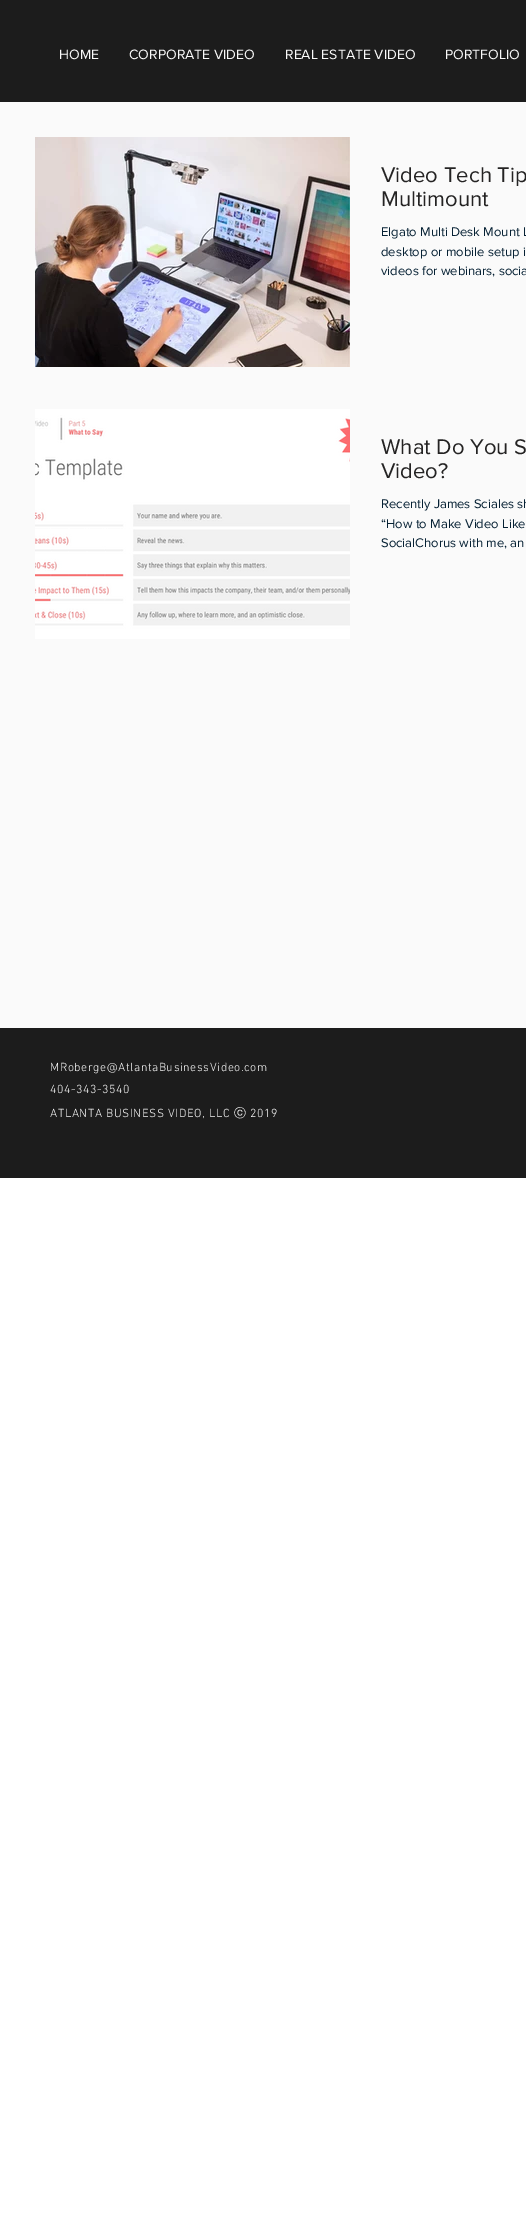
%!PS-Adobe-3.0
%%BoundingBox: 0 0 526 2231
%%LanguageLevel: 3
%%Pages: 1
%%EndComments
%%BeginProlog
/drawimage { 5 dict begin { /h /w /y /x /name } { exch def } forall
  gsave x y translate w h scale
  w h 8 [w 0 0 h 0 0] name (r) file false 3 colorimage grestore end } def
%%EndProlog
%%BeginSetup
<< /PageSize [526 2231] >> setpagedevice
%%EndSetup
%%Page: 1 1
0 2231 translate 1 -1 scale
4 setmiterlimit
1 setgray
0 0 526 2231 rectfill
0.11 setgray
0 0 526 102 rectfill
0.98 setgray
0 102 526 926 rectfill
(images/1.raw) 35 137 315 230 drawimage
(images/2.raw) 35 409 315 230 drawimage
0.11 setgray
0 1028 526 150 rectfill
/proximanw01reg-Regular [14 0 0 -14 0 0] selectfont
0.98 setgray
59 59 moveto (HOME) show
129 59 moveto (CORPORATE VIDEO) show
285 59 moveto (REAL ESTATE VIDEO) show
445 59 moveto (PORTFOLIO) show
/proximanw01reg-Regular [22 0 0 -22 0 0] selectfont
0.141 0.137 0.137 setrgbcolor
381 182 moveto (Video Tech Tip) show
381 206 moveto (Multimount) show
/proximanw01reg-Regular [13 0 0 -13 0 0] selectfont
0.024 0.129 0.204 setrgbcolor
381 236 moveto (Elgato Multi Desk Mount L) show
381 256 moveto (desktop or mobile setup i) show
381 275 moveto (videos for webinars, socia) show
/proximanw01reg-Regular [22 0 0 -22 0 0] selectfont
0.141 0.137 0.137 setrgbcolor
381 454 moveto (What Do You S) show
381 478 moveto (Video?) show
/proximanw01reg-Regular [13 0 0 -13 0 0] selectfont
0.024 0.129 0.204 setrgbcolor
381 508 moveto (Recently James Sciales sh) show
381 528 moveto (“How to Make Video Like) show
381 547 moveto (SocialChorus with me, an) show
/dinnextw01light-Light [12 0 0 -12 0 0] selectfont
0.98 setgray
50 1071 moveto 0.6 0 (MRoberge@AtlantaBusinessVideo.com) ashow
50 1093 moveto 0.6 0 (404-343-3540) ashow
50 1117 moveto 0.6 0 (ATLANTA BUSINESS VIDEO, LLC) ashow
/WenQuanYiZenHei-Medium [12 0 0 -12 0 0] selectfont
234 1117 moveto 0.6 0 (ⓒ) ashow
/dinnextw01light-Light [12 0 0 -12 0 0] selectfont
250 1117 moveto 0.6 0 (2019) ashow
showpage
%%EOF
